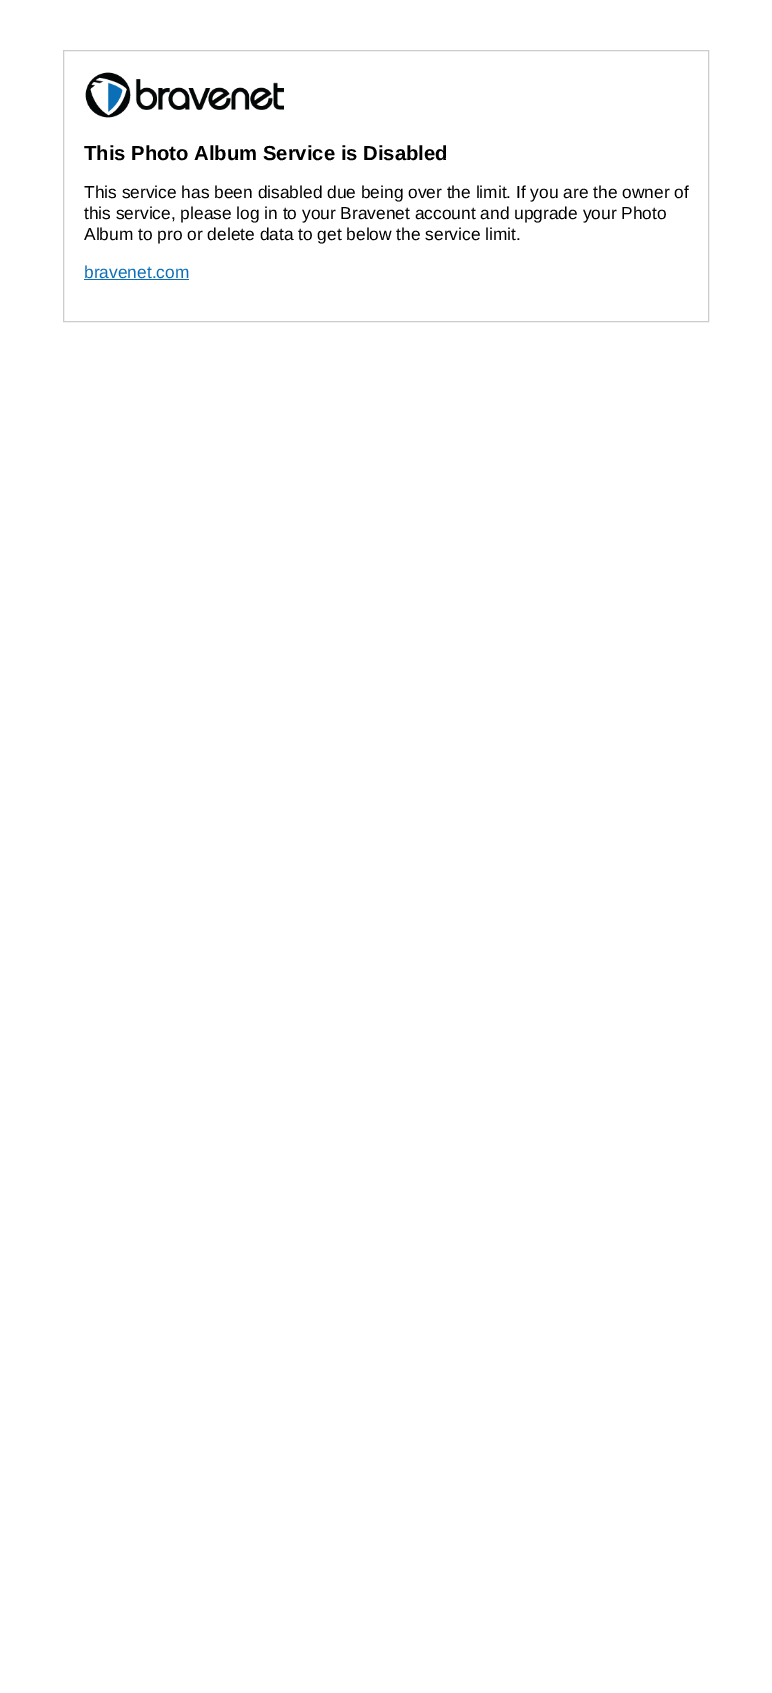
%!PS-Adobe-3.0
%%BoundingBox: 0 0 772 1693
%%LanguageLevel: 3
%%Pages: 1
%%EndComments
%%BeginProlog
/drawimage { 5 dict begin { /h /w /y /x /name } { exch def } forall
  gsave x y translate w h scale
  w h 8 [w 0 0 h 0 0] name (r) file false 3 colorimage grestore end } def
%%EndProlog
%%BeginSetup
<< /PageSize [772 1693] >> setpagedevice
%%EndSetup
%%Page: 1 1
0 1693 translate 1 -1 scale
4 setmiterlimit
1 setgray
0 0 772 1693 rectfill
0.8 setgray
63.5 50.5 645 271 rectstroke
(images/1.raw) 85 72 199 46 drawimage
0.039 0.435 0.718 setrgbcolor
84 279 105 1 rectfill
/LiberationSans-Bold [20.25 0 0 -20.25 0 0] selectfont
0 setgray
84 160 moveto (This Photo Album Service is Disabled) show
/LiberationSans-Regular [17.35 0 0 -17.35 0 0] selectfont
84 198 moveto (This service has been disabled due being over the limit. If you are the owner of) show
84 219 moveto (this service, please log in to your Bravenet account and upgrade your Photo) show
84 240 moveto (Album to pro or delete data to get below the service limit.) show
0.039 0.435 0.718 setrgbcolor
84 278 moveto (bravenet.com) show
showpage
%%EOF
